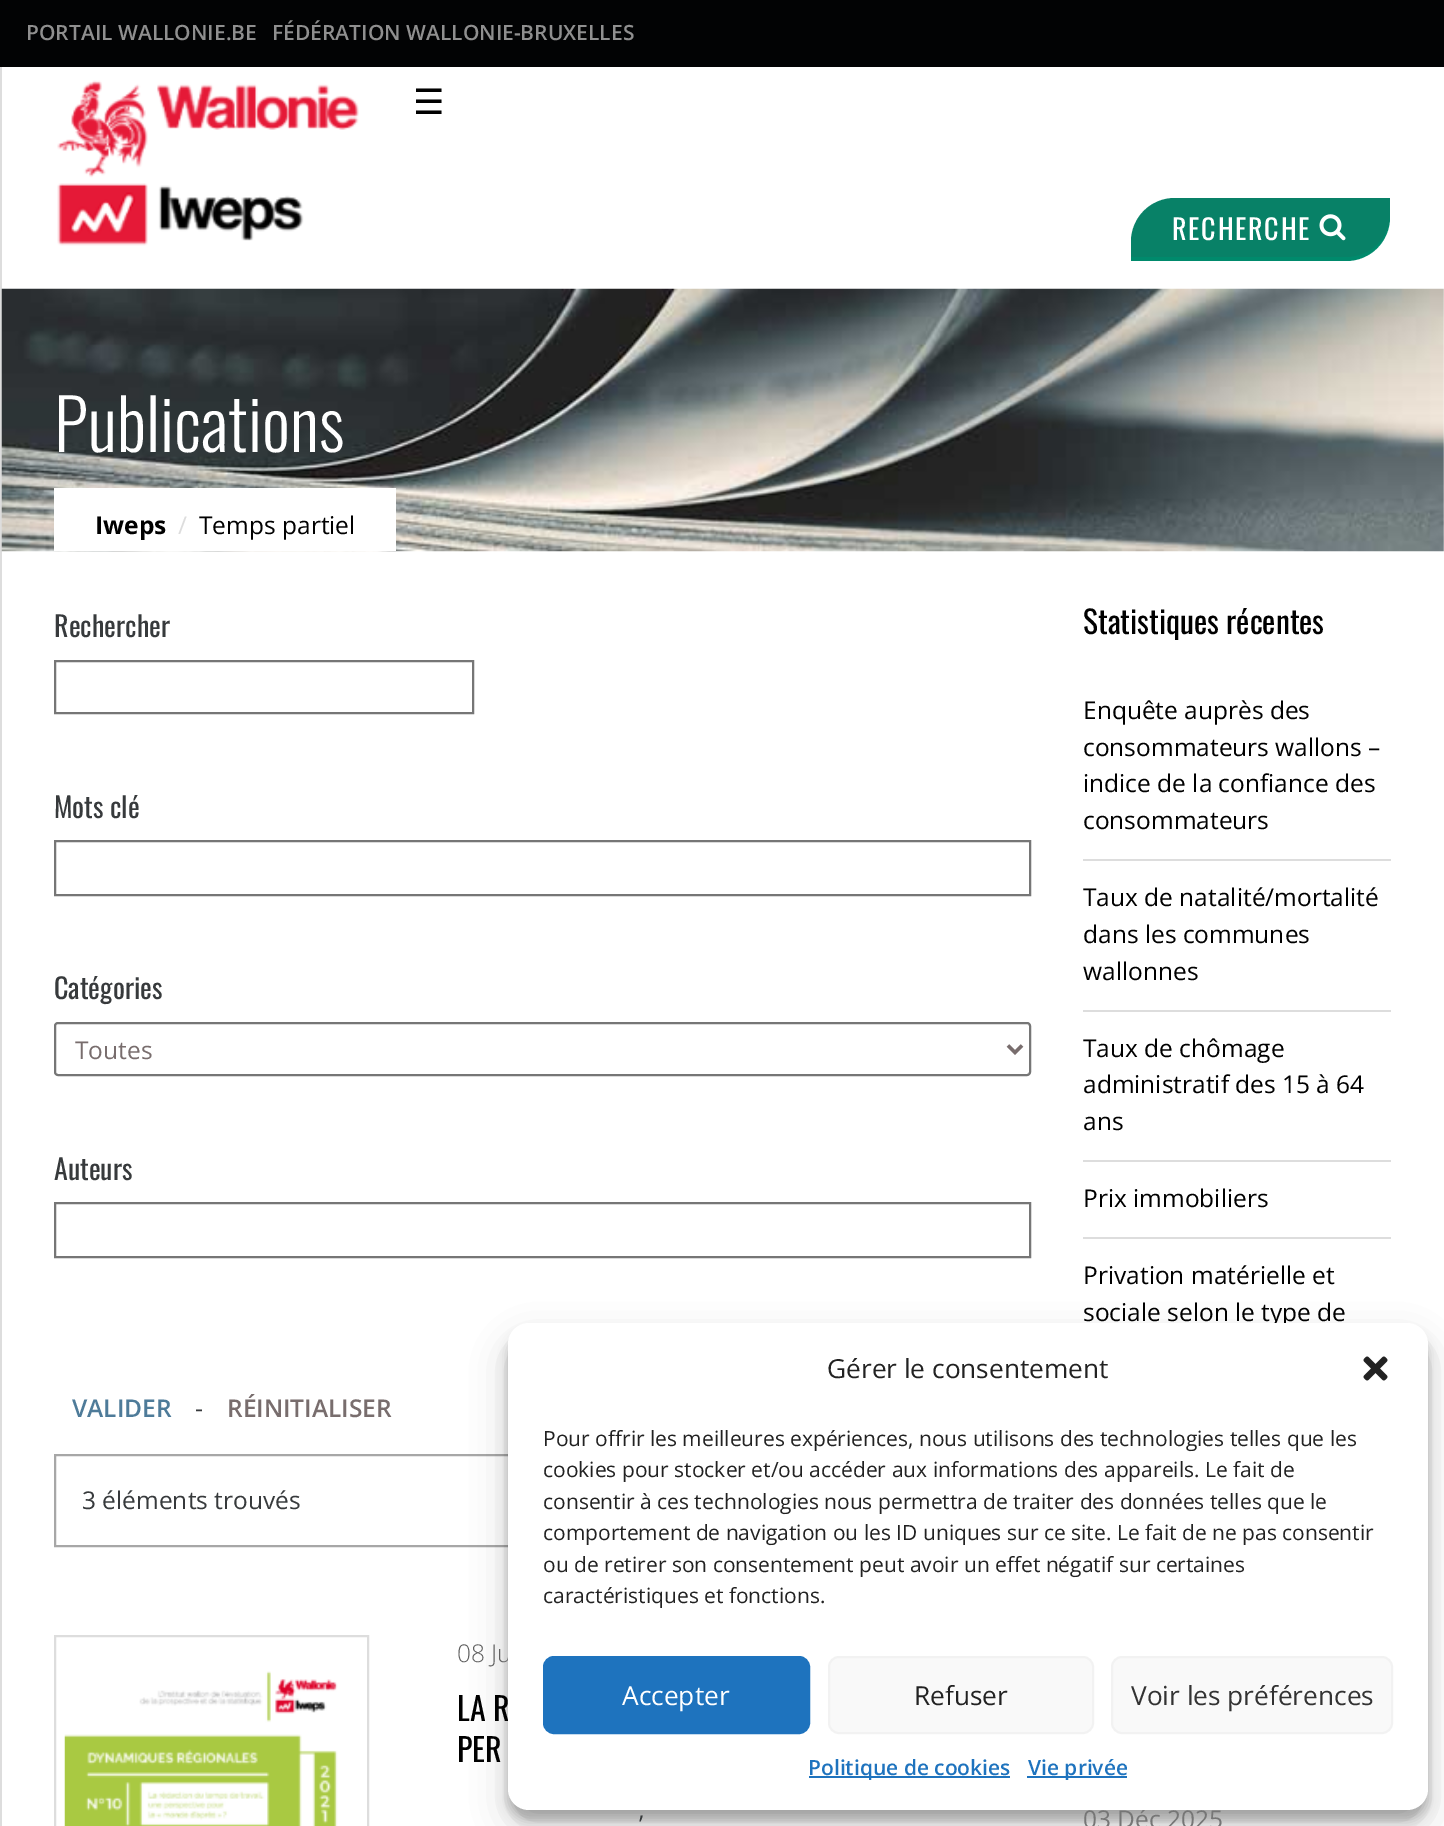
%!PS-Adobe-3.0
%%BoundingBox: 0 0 1444 1826
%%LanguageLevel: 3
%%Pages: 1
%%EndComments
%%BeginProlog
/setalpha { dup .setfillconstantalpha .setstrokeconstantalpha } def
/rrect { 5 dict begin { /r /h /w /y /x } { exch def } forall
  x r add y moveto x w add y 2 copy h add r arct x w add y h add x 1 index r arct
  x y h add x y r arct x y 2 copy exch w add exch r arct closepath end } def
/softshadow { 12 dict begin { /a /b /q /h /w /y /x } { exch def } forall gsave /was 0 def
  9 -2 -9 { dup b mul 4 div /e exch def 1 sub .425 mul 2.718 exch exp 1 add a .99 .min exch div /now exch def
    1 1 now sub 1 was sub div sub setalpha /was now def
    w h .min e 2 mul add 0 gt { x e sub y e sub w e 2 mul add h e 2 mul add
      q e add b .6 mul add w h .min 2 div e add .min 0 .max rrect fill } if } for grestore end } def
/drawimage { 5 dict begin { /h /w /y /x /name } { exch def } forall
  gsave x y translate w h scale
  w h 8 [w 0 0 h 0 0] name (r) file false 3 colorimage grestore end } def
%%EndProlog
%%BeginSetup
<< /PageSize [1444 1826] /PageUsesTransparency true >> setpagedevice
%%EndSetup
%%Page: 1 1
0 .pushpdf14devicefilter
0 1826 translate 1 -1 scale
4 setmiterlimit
0.008 0.012 0.016 setrgbcolor
0 0 1444 1826 rectfill
1 setgray
2 67 1442 1759 rectfill
0.867 setgray
0 67 2 1759 rectfill
(images/1.raw) 57 80 302 166 drawimage
0 0.541 0.424 setrgbcolor
newpath 1175 201 moveto 1390 201 lineto 1390 217 lineto 1390 241.5 1370.5 261 1346 261 curveto 1131 261 lineto 1131 245 lineto 1131 220.5 1150.5 201 1175 201 curveto closepath fill
0.031 0.506 0.404 setrgbcolor
newpath 1175 198 moveto 1390 198 lineto 1390 213 lineto 1390 237.5 1370.5 257 1346 257 curveto 1131 257 lineto 1131 242 lineto 1131 217.5 1150.5 198 1175 198 curveto closepath fill
(images/2.raw) 1319 214 27 27 drawimage
(images/3.raw) 1 288 1443 264 drawimage
1 setgray
54 488 342 63 rectfill
0.463 setgray
2 setlinewidth
55 661 418 52 rectstroke
55 841 975 54 rectstroke
55 1023 975 52 3 rrect stroke
0.471 0.427 0.427 setrgbcolor
3.5 setlinewidth
newpath 1008 1045.5 moveto 1015 1052.5 lineto 1022 1045.5 lineto stroke
0.463 setgray
2 setlinewidth
55 1203 975 54 rectstroke
0.655 setgray
55 1455 975 91 rectstroke
0.867 setgray
55 1636 313 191 rectstroke
(images/4.raw) 64 1671 274 155 drawimage
1083 859 308 2 rectfill
1083 1010 308 2 rectfill
1083 1160 308 2 rectfill
1083 1237 308 2 rectfill
0 setgray
508 1334 920 486 21 5 0.23 softshadow
508 1341 920 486 21 17.5 0.19 softshadow
/OpenSans-SemiBold [21 0 0 -21 0 0] selectfont
0.561 setgray
26 40 moveto (PORTAIL WALLONIE.BE) show
272 40 moveto (FÉDÉRATION WALLONIE-BRUXELLES) show
/DejaVuSans-Regular [35 0 0 -35 0 0] selectfont
0 setgray
413 114 moveto (☰) show
/Oswald-Regular [28 0 0 -28 0 0] selectfont
1 setgray
1172 240 moveto 1.75 0 (RECHERCHE) ashow
/Oswald-Light [70 0 0 -70 0 0] selectfont
54 452 moveto (Publications) show
/OpenSans-Bold [24.5 0 0 -24.5 0 0] selectfont
0 setgray
95 534 moveto (Iweps) show
/OpenSans-Regular [24.5 0 0 -24.5 0 0] selectfont
0.867 setgray
178 534 moveto (/) show
0 setgray
199 534 moveto (Temps partiel) show
/Oswald-Regular [28 0 0 -28 0 0] selectfont
0.216 0.227 0.235 setrgbcolor
54 637 moveto (Rechercher) show
54 818 moveto (Mots clé) show
54 999 moveto (Catégories) show
/OpenSans-Regular [24.5 0 0 -24.5 0 0] selectfont
0.471 0.427 0.427 setrgbcolor
75 1059 moveto (Toutes) show
/Oswald-Regular [28 0 0 -28 0 0] selectfont
0.216 0.227 0.235 setrgbcolor
54 1180 moveto (Auteurs) show
/OpenSans-SemiBold [24.5 0 0 -24.5 0 0] selectfont
0.306 0.482 0.6 setrgbcolor
72 1417 moveto (VALIDER) show
/OpenSans-Regular [24.5 0 0 -24.5 0 0] selectfont
0.216 0.227 0.235 setrgbcolor
195 1417 moveto (-) show
/OpenSans-SemiBold [24.5 0 0 -24.5 0 0] selectfont
0.471 0.427 0.427 setrgbcolor
227 1417 moveto (RÉINITIALISER) show
/OpenSans-Regular [24.5 0 0 -24.5 0 0] selectfont
0.216 0.227 0.235 setrgbcolor
82 1509 moveto (3 éléments trouvés) show
/OpenSans-Light [24.5 0 0 -24.5 0 0] selectfont
0.38 setgray
457 1662 moveto (08 Ju) show
/Oswald-Regular [32 0 0 -32 0 0] selectfont
0 setgray
457 1721 moveto (LA R) show
457 1762 moveto (PER) show
/OpenSans-Regular [24.5 0 0 -24.5 0 0] selectfont
0.216 0.227 0.235 setrgbcolor
639 1833 moveto (’) show
/Oswald-Regular [31.5 0 0 -31.5 0 0] selectfont
0 setgray
1083 634 moveto (Statistiques récentes) show
/OpenSans-Regular [24.5 0 0 -24.5 0 0] selectfont
1083 719 moveto (Enquête auprès des) show
1083 756 moveto (consommateurs wallons –) show
1083 792 moveto (indice de la confiance des) show
1083 829 moveto (consommateurs) show
1083 906 moveto (Taux de natalité/mortalité) show
1083 943 moveto (dans les communes) show
1083 980 moveto (wallonnes) show
1083 1057 moveto (Taux de chômage) show
1083 1093 moveto (administratif des 15 à 64) show
1083 1130 moveto (ans) show
1083 1207 moveto (Prix immobiliers) show
1083 1284 moveto (Privation matérielle et) show
1083 1321 moveto (sociale selon le type de) show
0.463 setgray
1083 1828 moveto (03 Déc 2025) show
1 setgray
508 1323 920 487 21 rrect fill
/OpenSans-Regular [26.25 0 0 -26.25 0 0] selectfont
0.133 setgray
827 1378 moveto (Gérer le consentement) show
(images/5.raw) 1363 1356 25 25 drawimage
/OpenSans-Regular [21 0 0 -21 0 0] selectfont
543 1446 moveto (Pour offrir les meilleures expériences, nous utilisons des technologies telles que les) show
543 1477 moveto (cookies pour stocker et/ou accéder aux informations des appareils. Le fait de) show
543 1509 moveto (consentir à ces technologies nous permettra de traiter des données telles que le) show
543 1540 moveto (comportement de navigation ou les ID uniques sur ce site. Le fait de ne pas consentir) show
543 1572 moveto (ou de retirer son consentement peut avoir un effet négatif sur certaines) show
543 1603 moveto (caractéristiques et fonctions.) show
0.118 0.451 0.745 setrgbcolor
544 1657 265 76 10 rrect gsave fill grestore
stroke
/OpenSans-Regular [26.25 0 0 -26.25 0 0] selectfont
1 setgray
622 1705 moveto (Accepter) show
0.976 setgray
829 1657 264 76 10 rrect gsave fill grestore
0.949 setgray
stroke
0.133 setgray
914 1705 moveto (Refuser) show
0.976 setgray
1112 1657 280 76 10 rrect gsave fill grestore
0.949 setgray
stroke
0.2 setgray
1131 1705 moveto (Voir les préférences) show
0.118 0.451 0.745 setrgbcolor
809 1776 201 2 rectfill
/OpenSans-SemiBold [21 0 0 -21 0 0] selectfont
808 1775 moveto (Politique de cookies) show
1027 1776 100 2 rectfill
1028 1775 moveto (Vie privée) show
.poppdf14devicefilter showpage
%%EOF
